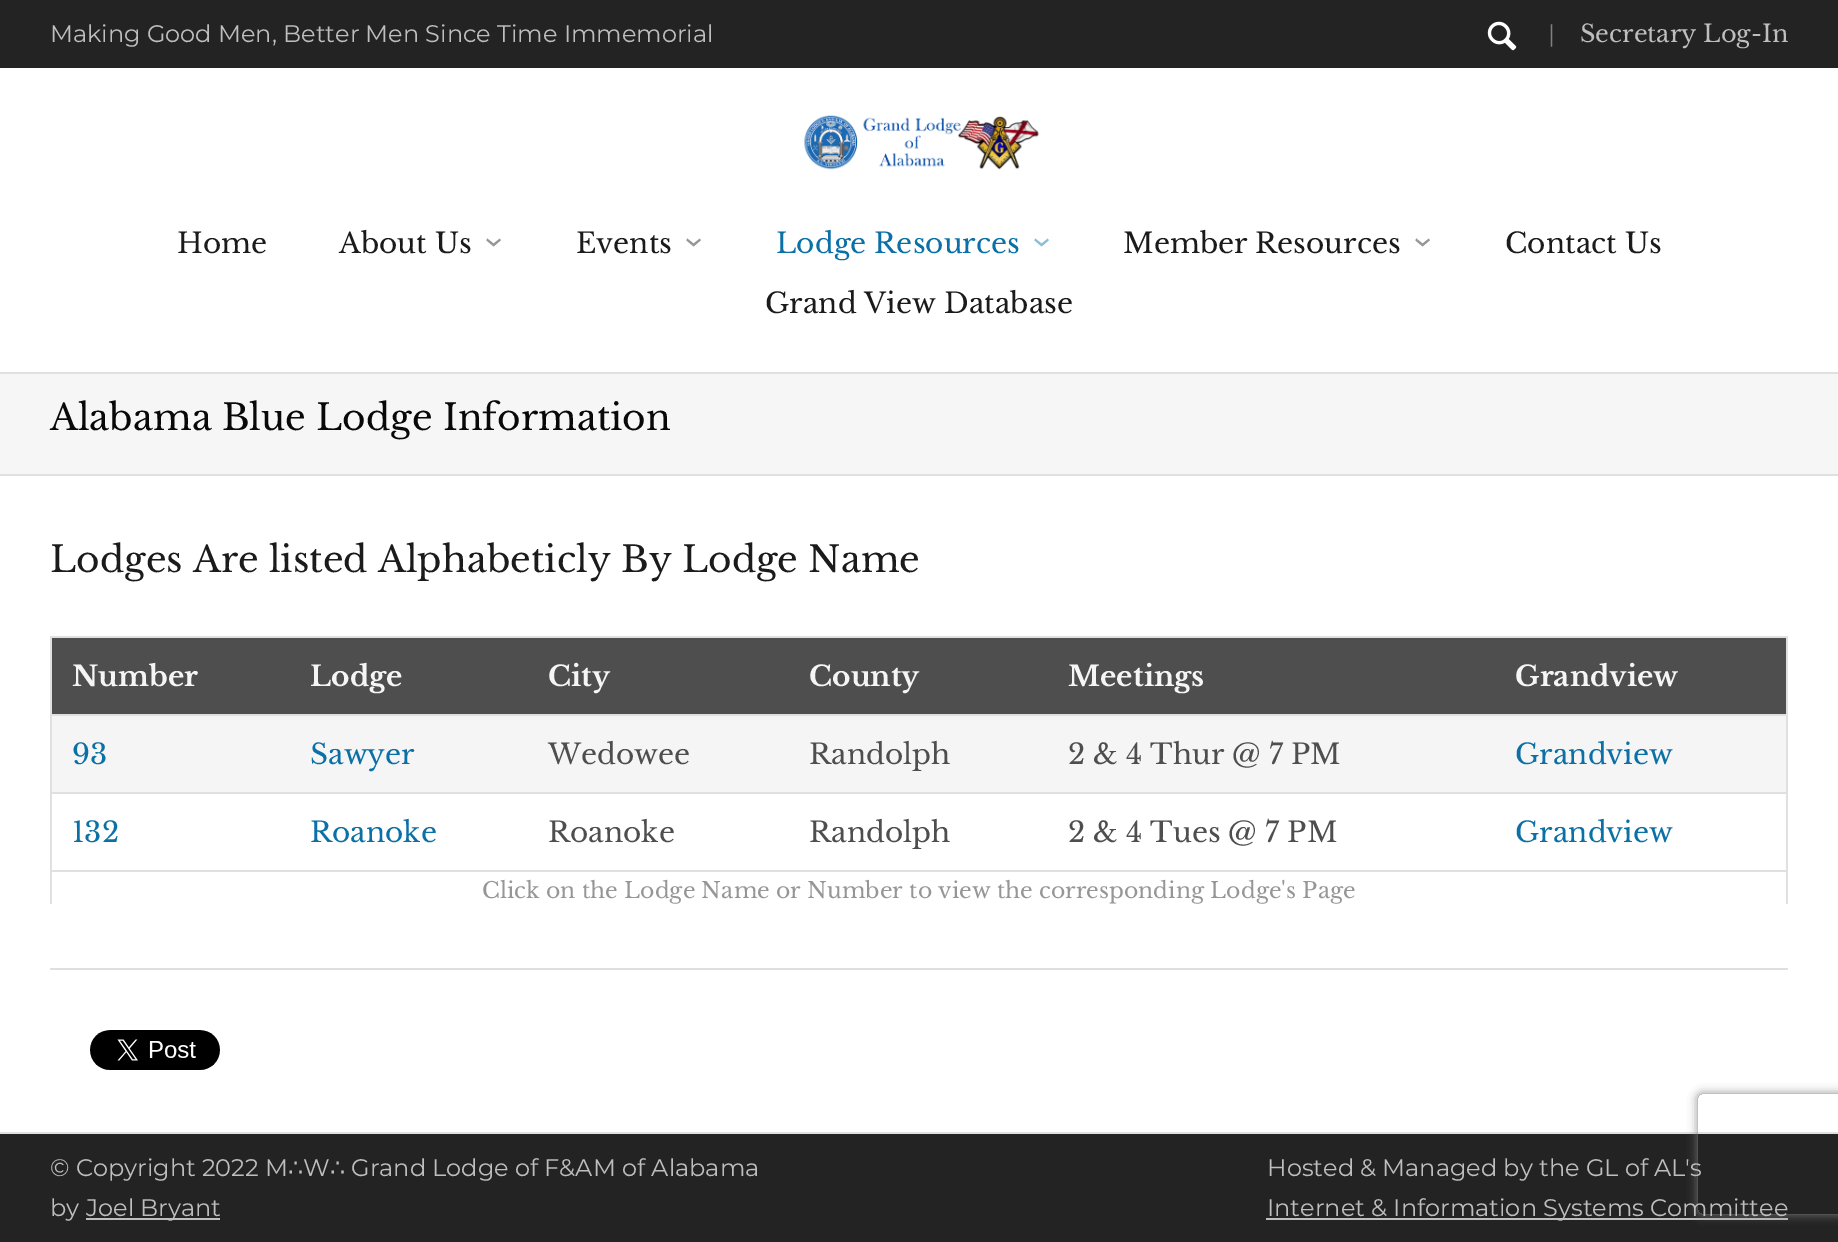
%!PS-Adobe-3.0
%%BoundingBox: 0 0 1838 1242
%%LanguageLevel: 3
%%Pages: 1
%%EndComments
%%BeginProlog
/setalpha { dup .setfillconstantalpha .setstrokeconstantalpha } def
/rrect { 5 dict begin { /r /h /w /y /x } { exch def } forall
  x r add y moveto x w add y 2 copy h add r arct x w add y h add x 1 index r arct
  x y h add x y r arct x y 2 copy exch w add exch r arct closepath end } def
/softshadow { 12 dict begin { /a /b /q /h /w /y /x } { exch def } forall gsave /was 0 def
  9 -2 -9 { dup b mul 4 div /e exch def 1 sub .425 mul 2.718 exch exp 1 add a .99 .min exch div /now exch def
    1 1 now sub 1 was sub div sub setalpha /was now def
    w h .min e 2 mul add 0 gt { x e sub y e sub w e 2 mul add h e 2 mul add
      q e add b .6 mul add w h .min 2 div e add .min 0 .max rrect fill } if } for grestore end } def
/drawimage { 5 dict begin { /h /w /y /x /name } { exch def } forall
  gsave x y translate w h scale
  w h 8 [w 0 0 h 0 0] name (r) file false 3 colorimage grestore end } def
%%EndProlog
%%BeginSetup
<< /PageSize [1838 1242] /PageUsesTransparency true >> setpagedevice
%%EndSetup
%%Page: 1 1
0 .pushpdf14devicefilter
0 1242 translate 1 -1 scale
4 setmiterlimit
1 setgray
0 0 1838 1242 rectfill
0.137 setgray
0 0 1838 68 rectfill
(images/1.raw) 1487 21 30 30 drawimage
(images/2.raw) 804 115 235 55 drawimage
0.878 setgray
0 372 1838 2 rectfill
0.965 setgray
0 374 1838 100 rectfill
0.878 setgray
0 474 1838 2 rectfill
0 1132 1838 2 rectfill
1786 636 2 268 rectfill
50 636 2 268 rectfill
0.306 setgray
52 638 1734 76 rectfill
0.878 setgray
50 636 1738 2 rectfill
0.961 setgray
52 716 1734 76 rectfill
0.878 setgray
50 714 1738 2 rectfill
50 792 1738 2 rectfill
50 870 1738 2 rectfill
0.875 setgray
50 968 1738 2 rectfill
(images/3.raw) 90 1030 130 40 drawimage
0.137 setgray
0 1134 1838 108 rectfill
0.745 setgray
86 1218 134 2 rectfill
1266 1218 522 2 rectfill
gsave
newpath 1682 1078 moveto 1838 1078 lineto 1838 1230 lineto 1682 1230 lineto closepath 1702 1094 moveto 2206 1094 lineto 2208 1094 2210 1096 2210 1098 curveto 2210 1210 lineto 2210 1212 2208 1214 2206 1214 curveto 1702 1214 lineto 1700 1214 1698 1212 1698 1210 curveto 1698 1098 lineto 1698 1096 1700 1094 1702 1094 curveto closepath eoclip newpath
0.502 setgray
1698 1094 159 120 4 5 1 softshadow
grestore
/Montserrat-Regular [24 0 0 -24 0 0] selectfont
50 42 moveto (Making Good Men, Better Men Since Time Immemorial) show
0.502 setgray
1548 42 moveto (|) show
/LibreBaskerville-Regular [24 0 0 -24 0 0] selectfont
0.745 setgray
1580 42 moveto (Secretary Log-In) show
/LibreBaskerville-Regular [28 0 0 -28 0 0] selectfont
0.106 setgray
177 253 moveto (Home) show
339 253 moveto (About Us) show
/OpenSans-Regular [36 0 0 -36 0 0] selectfont
0.588 setgray
gsave 484 237 translate 90 rotate 0 0 moveto (›) show grestore
/LibreBaskerville-Regular [28 0 0 -28 0 0] selectfont
0.106 setgray
576 253 moveto (Events) show
/OpenSans-Regular [36 0 0 -36 0 0] selectfont
0.588 setgray
gsave 684 237 translate 90 rotate 0 0 moveto (›) show grestore
/LibreBaskerville-Regular [28 0 0 -28 0 0] selectfont
0.039 0.439 0.651 setrgbcolor
776 253 moveto (Lodge Resources) show
/OpenSans-Regular [36 0 0 -36 0 0] selectfont
0.557 0.741 0.839 setrgbcolor
gsave 1032 237 translate 90 rotate 0 0 moveto (›) show grestore
/LibreBaskerville-Regular [28 0 0 -28 0 0] selectfont
0.106 setgray
1123 253 moveto (Member Resources) show
/OpenSans-Regular [36 0 0 -36 0 0] selectfont
0.588 setgray
gsave 1413 237 translate 90 rotate 0 0 moveto (›) show grestore
/LibreBaskerville-Regular [28 0 0 -28 0 0] selectfont
0.106 setgray
1505 253 moveto (Contact Us) show
765 313 moveto (Grand View Database) show
/LibreBaskerville-Regular [36 0 0 -36 0 0] selectfont
0.035 setgray
50 430 moveto (Alabama Blue Lodge Information) show
0.106 setgray
50 572 moveto (Lodges Are listed Alphabeticly By Lodge Name) show
/LibreBaskerville-Bold [28 0 0 -28 0 0] selectfont
0.961 setgray
72 686 moveto (Number) show
310 686 moveto (Lodge) show
548 686 moveto (City) show
809 686 moveto (County) show
1068 686 moveto (Meetings) show
1515 686 moveto (Grandview) show
/LibreBaskerville-Regular [28 0 0 -28 0 0] selectfont
0.039 0.439 0.651 setrgbcolor
72 764 moveto (93) show
310 764 moveto (Sawyer) show
0.306 setgray
548 764 moveto (Wedowee) show
809 764 moveto (Randolph) show
1068 764 moveto (2 & 4 Thur @ 7 PM) show
0.039 0.439 0.651 setrgbcolor
1515 764 moveto (Grandview) show
72 842 moveto (132) show
310 842 moveto (Roanoke) show
0.306 setgray
548 842 moveto (Roanoke) show
809 842 moveto (Randolph) show
1068 842 moveto (2 & 4 Tues @ 7 PM) show
0.039 0.439 0.651 setrgbcolor
1515 842 moveto (Grandview) show
/LibreBaskerville-Regular [22 0 0 -22 0 0] selectfont
0.588 setgray
482 898 moveto (Click on the Lodge Name or Number to view the corresponding Lodge's Page) show
/Montserrat-Regular [24 0 0 -24 0 0] selectfont
0.745 setgray
50 1176 moveto (© Copyright 2022 M) show
/DejaVuSans-Regular [24 0 0 -24 0 0] selectfont
288 1176 moveto (∴) show
/Montserrat-Regular [24 0 0 -24 0 0] selectfont
303 1176 moveto (W) show
/DejaVuSans-Regular [24 0 0 -24 0 0] selectfont
330 1176 moveto (∴) show
/Montserrat-Regular [24 0 0 -24 0 0] selectfont
351 1176 moveto (Grand Lodge of F&AM of Alabama) show
50 1216 moveto (by) show
86 1216 moveto (Joel Bryant) show
1267 1176 moveto (Hosted & Managed by the GL of AL's) show
1267 1216 moveto (Internet & Information Systems Committee) show
.poppdf14devicefilter showpage
%%EOF
